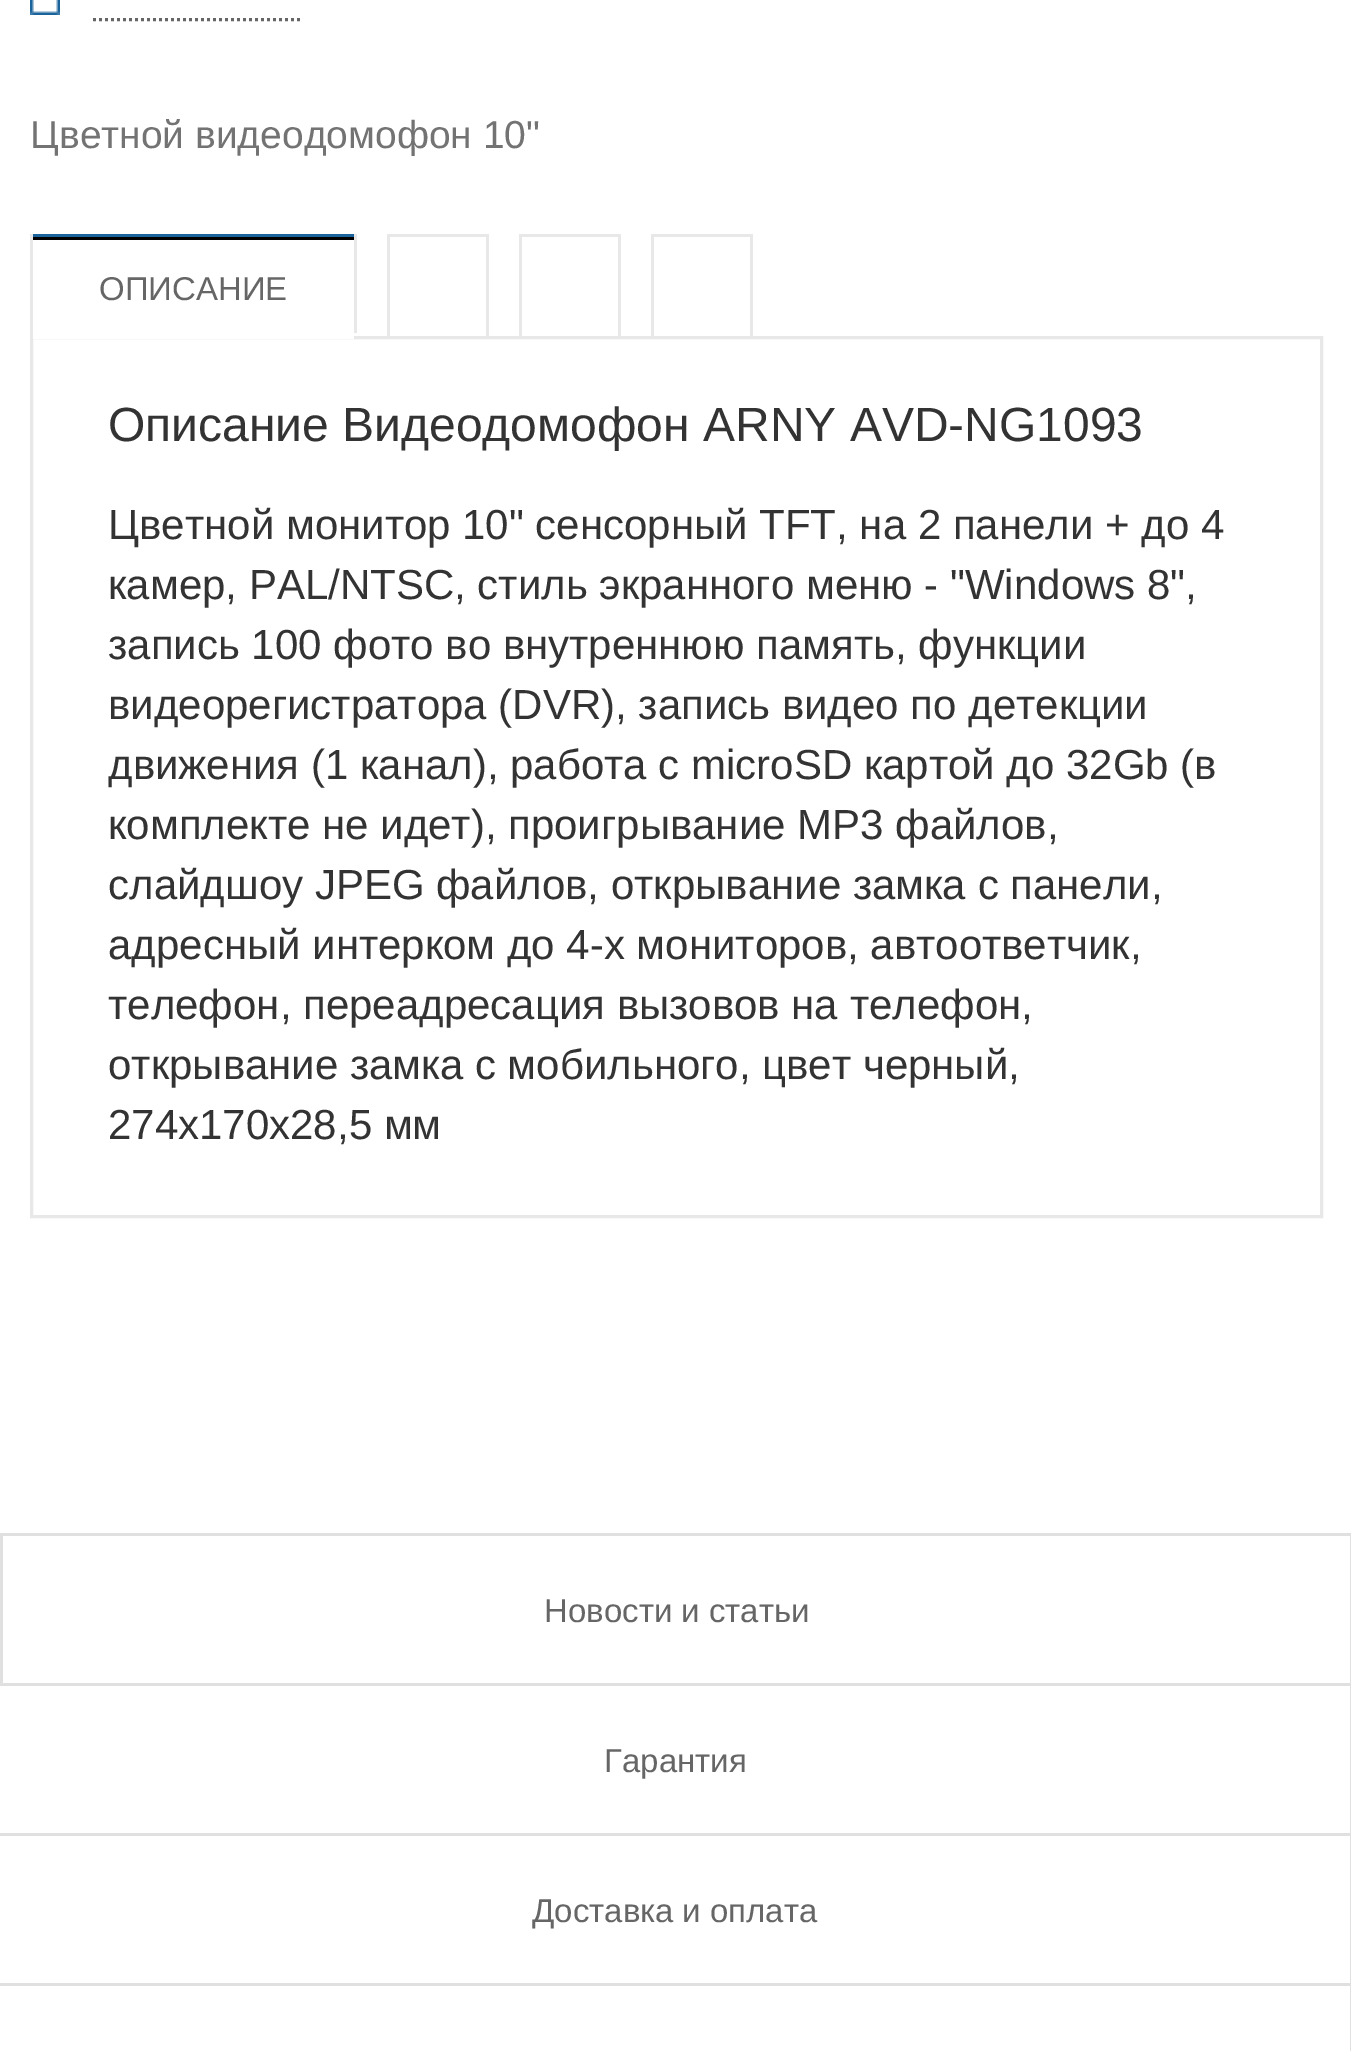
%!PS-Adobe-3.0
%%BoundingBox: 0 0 1351 2051
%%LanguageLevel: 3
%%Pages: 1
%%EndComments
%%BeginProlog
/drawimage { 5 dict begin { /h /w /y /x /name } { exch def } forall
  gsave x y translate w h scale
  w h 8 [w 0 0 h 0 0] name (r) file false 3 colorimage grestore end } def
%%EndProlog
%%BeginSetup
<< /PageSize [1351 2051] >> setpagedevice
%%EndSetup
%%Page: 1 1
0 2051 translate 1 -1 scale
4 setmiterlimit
1 setgray
0 0 1351 2051 rectfill
(images/1.raw) 30 0 30 15 drawimage
0.4 setgray
3 setlinewidth
[3 3] 0 setdash
newpath 93 19.5 moveto 303 19.5 lineto stroke
0.106 0.388 0.608 setrgbcolor
30 234 327 3 rectfill
0.91 setgray
354 234 3 102 rectfill
1 setgray
354 333 3 3 rectfill
0.91 setgray
30 234 3 102 rectfill
0 setgray
33 237 321 3 rectfill
0.91 setgray
[] 0 setdash
31.5 337.5 1290 879 rectstroke
1 setgray
33 336 321 3 rectfill
0.91 setgray
387 234 102 3 rectfill
486 234 3 102 rectfill
387 234 3 102 rectfill
519 234 102 3 rectfill
618 234 3 102 rectfill
519 234 3 102 rectfill
651 234 102 3 rectfill
750 234 3 102 rectfill
651 234 3 102 rectfill
0.878 setgray
0 1533 1351 3 rectfill
1350 1536 1 515 rectfill
0 1683 1351 3 rectfill
0 1536 3 150 rectfill
0 1833 1351 3 rectfill
0 1983 1351 3 rectfill
/LiberationSans-Regular [39 0 0 -39 0 0] selectfont
0.451 setgray
30 148 moveto (Цветной видеодомофон 10") show
/LiberationSans-Regular [33 0 0 -33 0 0] selectfont
0.4 setgray
99 300 moveto (ОПИСАНИЕ) show
/LiberationSans-Regular [48 0 0 -48 0 0] selectfont
0.2 setgray
108 441 moveto (Описание Видеодомофон ARNY AVD-NG1093) show
/LiberationSans-Regular [42 0 0 -42 0 0] selectfont
108 539 moveto (Цветной монитор 10" сенсорный TFT, на 2 панели + до 4) show
108 599 moveto (камер, PAL/NTSC, стиль экранного меню - "Windows 8",) show
108 659 moveto (запись 100 фото во внутреннюю память, функции) show
108 719 moveto (видеорегистратора \(DVR\), запись видео по детекции) show
108 779 moveto (движения \(1 канал\), работа с microSD картой до 32Gb \(в) show
108 839 moveto (комплекте не идет\), проигрывание МР3 файлов,) show
108 899 moveto (слайдшоу JPEG файлов, открывание замка с панели,) show
108 959 moveto (адресный интерком до 4-х мониторов, автоответчик,) show
108 1019 moveto (телефон, переадресация вызовов на телефон,) show
108 1079 moveto (открывание замка с мобильного, цвет черный,) show
108 1139 moveto (274x170x28,5 мм) show
/LiberationSans-Regular [33 0 0 -33 0 0] selectfont
0.4 setgray
544 1622 moveto (Новости и статьи) show
604 1772 moveto (Гарантия) show
532 1922 moveto (Доставка и оплата) show
showpage
%%EOF
